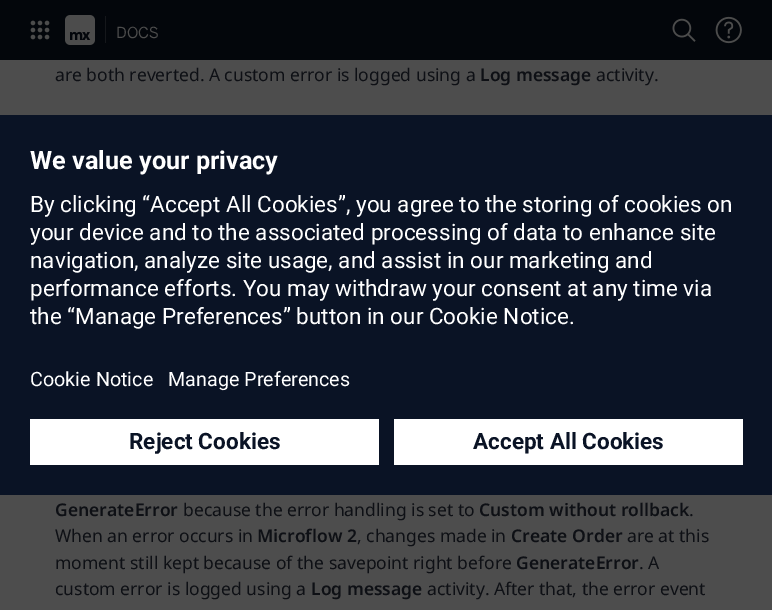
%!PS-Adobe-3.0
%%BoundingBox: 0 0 772 610
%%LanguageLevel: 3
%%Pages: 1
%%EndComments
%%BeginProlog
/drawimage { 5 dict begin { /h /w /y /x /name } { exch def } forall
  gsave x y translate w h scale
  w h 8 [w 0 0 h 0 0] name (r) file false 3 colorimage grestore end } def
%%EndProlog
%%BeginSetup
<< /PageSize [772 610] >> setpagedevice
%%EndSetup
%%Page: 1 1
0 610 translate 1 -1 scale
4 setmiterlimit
0.302 setgray
0 0 772 610 rectfill
0.012 0.024 0.043 setrgbcolor
0 0 772 60 rectfill
(images/1.raw) 30 20 20 20 drawimage
(images/2.raw) 65 15 30 30 drawimage
0.082 0.09 0.106 setrgbcolor
105 16 1 27 rectfill
(images/3.raw) 672 18 24 24 drawimage
(images/4.raw) 715 16 27 28 drawimage
0.039 0.075 0.145 setrgbcolor
0 115 772 380 rectfill
1 setgray
30 419 349 46 rectfill
394 419 349 46 rectfill
/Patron-Light [16 0 0 -16 0 0] selectfont
0.302 setgray
116 38 moveto (DOCS) show
/NotoSans-Regular [17.5 0 0 -17.5 0 0] selectfont
0.055 0.063 0.082 setrgbcolor
55 81 moveto (are both reverted. A custom error is logged using a) show
/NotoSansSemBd-SemiBold [17.5 0 0 -17.5 0 0] selectfont
480 81 moveto (Log message) show
/NotoSans-Regular [17.5 0 0 -17.5 0 0] selectfont
596 81 moveto (activity.) show
/NotoSansSemBd-SemiBold [17.5 0 0 -17.5 0 0] selectfont
55 516 moveto (GenerateError) show
/NotoSans-Regular [17.5 0 0 -17.5 0 0] selectfont
183 516 moveto (because the error handling is set to) show
/NotoSansSemBd-SemiBold [17.5 0 0 -17.5 0 0] selectfont
479 516 moveto (Custom without rollback) show
/NotoSans-Regular [17.5 0 0 -17.5 0 0] selectfont
689 516 moveto (.) show
55 542 moveto (When an error occurs in) show
/NotoSansSemBd-SemiBold [17.5 0 0 -17.5 0 0] selectfont
257 542 moveto (Microflow 2) show
/NotoSans-Regular [17.5 0 0 -17.5 0 0] selectfont
357 542 moveto (, changes made in) show
/NotoSansSemBd-SemiBold [17.5 0 0 -17.5 0 0] selectfont
511 542 moveto (Create Order) show
/NotoSans-Regular [17.5 0 0 -17.5 0 0] selectfont
627 542 moveto (are at this) show
55 569 moveto (moment still kept because of the savepoint right before) show
/NotoSansSemBd-SemiBold [17.5 0 0 -17.5 0 0] selectfont
516 569 moveto (GenerateError) show
/NotoSans-Regular [17.5 0 0 -17.5 0 0] selectfont
639 569 moveto (. A) show
55 595 moveto (custom error is logged using a) show
/NotoSansSemBd-SemiBold [17.5 0 0 -17.5 0 0] selectfont
311 595 moveto (Log message) show
/NotoSans-Regular [17.5 0 0 -17.5 0 0] selectfont
427 595 moveto (activity. After that, the error event) show
/Roboto-Bold [25.25 0 0 -25.25 0 0] selectfont
1 setgray
30 169 moveto (We value your privacy) show
/Roboto-Regular [22.5 0 0 -22.5 0 0] selectfont
30 212 moveto (By clicking “Accept All Cookies”, you agree to the storing of cookies on) show
30 240 moveto (your device and to the associated processing of data to enhance site) show
30 268 moveto (navigation, analyze site usage, and assist in our marketing and) show
30 296 moveto (performance efforts. You may withdraw your consent at any time via) show
30 324 moveto (the “Manage Preferences” button in our Cookie Notice.) show
/Roboto-Regular [19.75 0 0 -19.75 0 0] selectfont
30 386 moveto (Cookie Notice) show
168 386 moveto (Manage Preferences) show
/Roboto-Bold [22.5 0 0 -22.5 0 0] selectfont
0.039 0.075 0.145 setrgbcolor
129 449 moveto (Reject Cookies) show
473 449 moveto (Accept All Cookies) show
showpage
%%EOF
